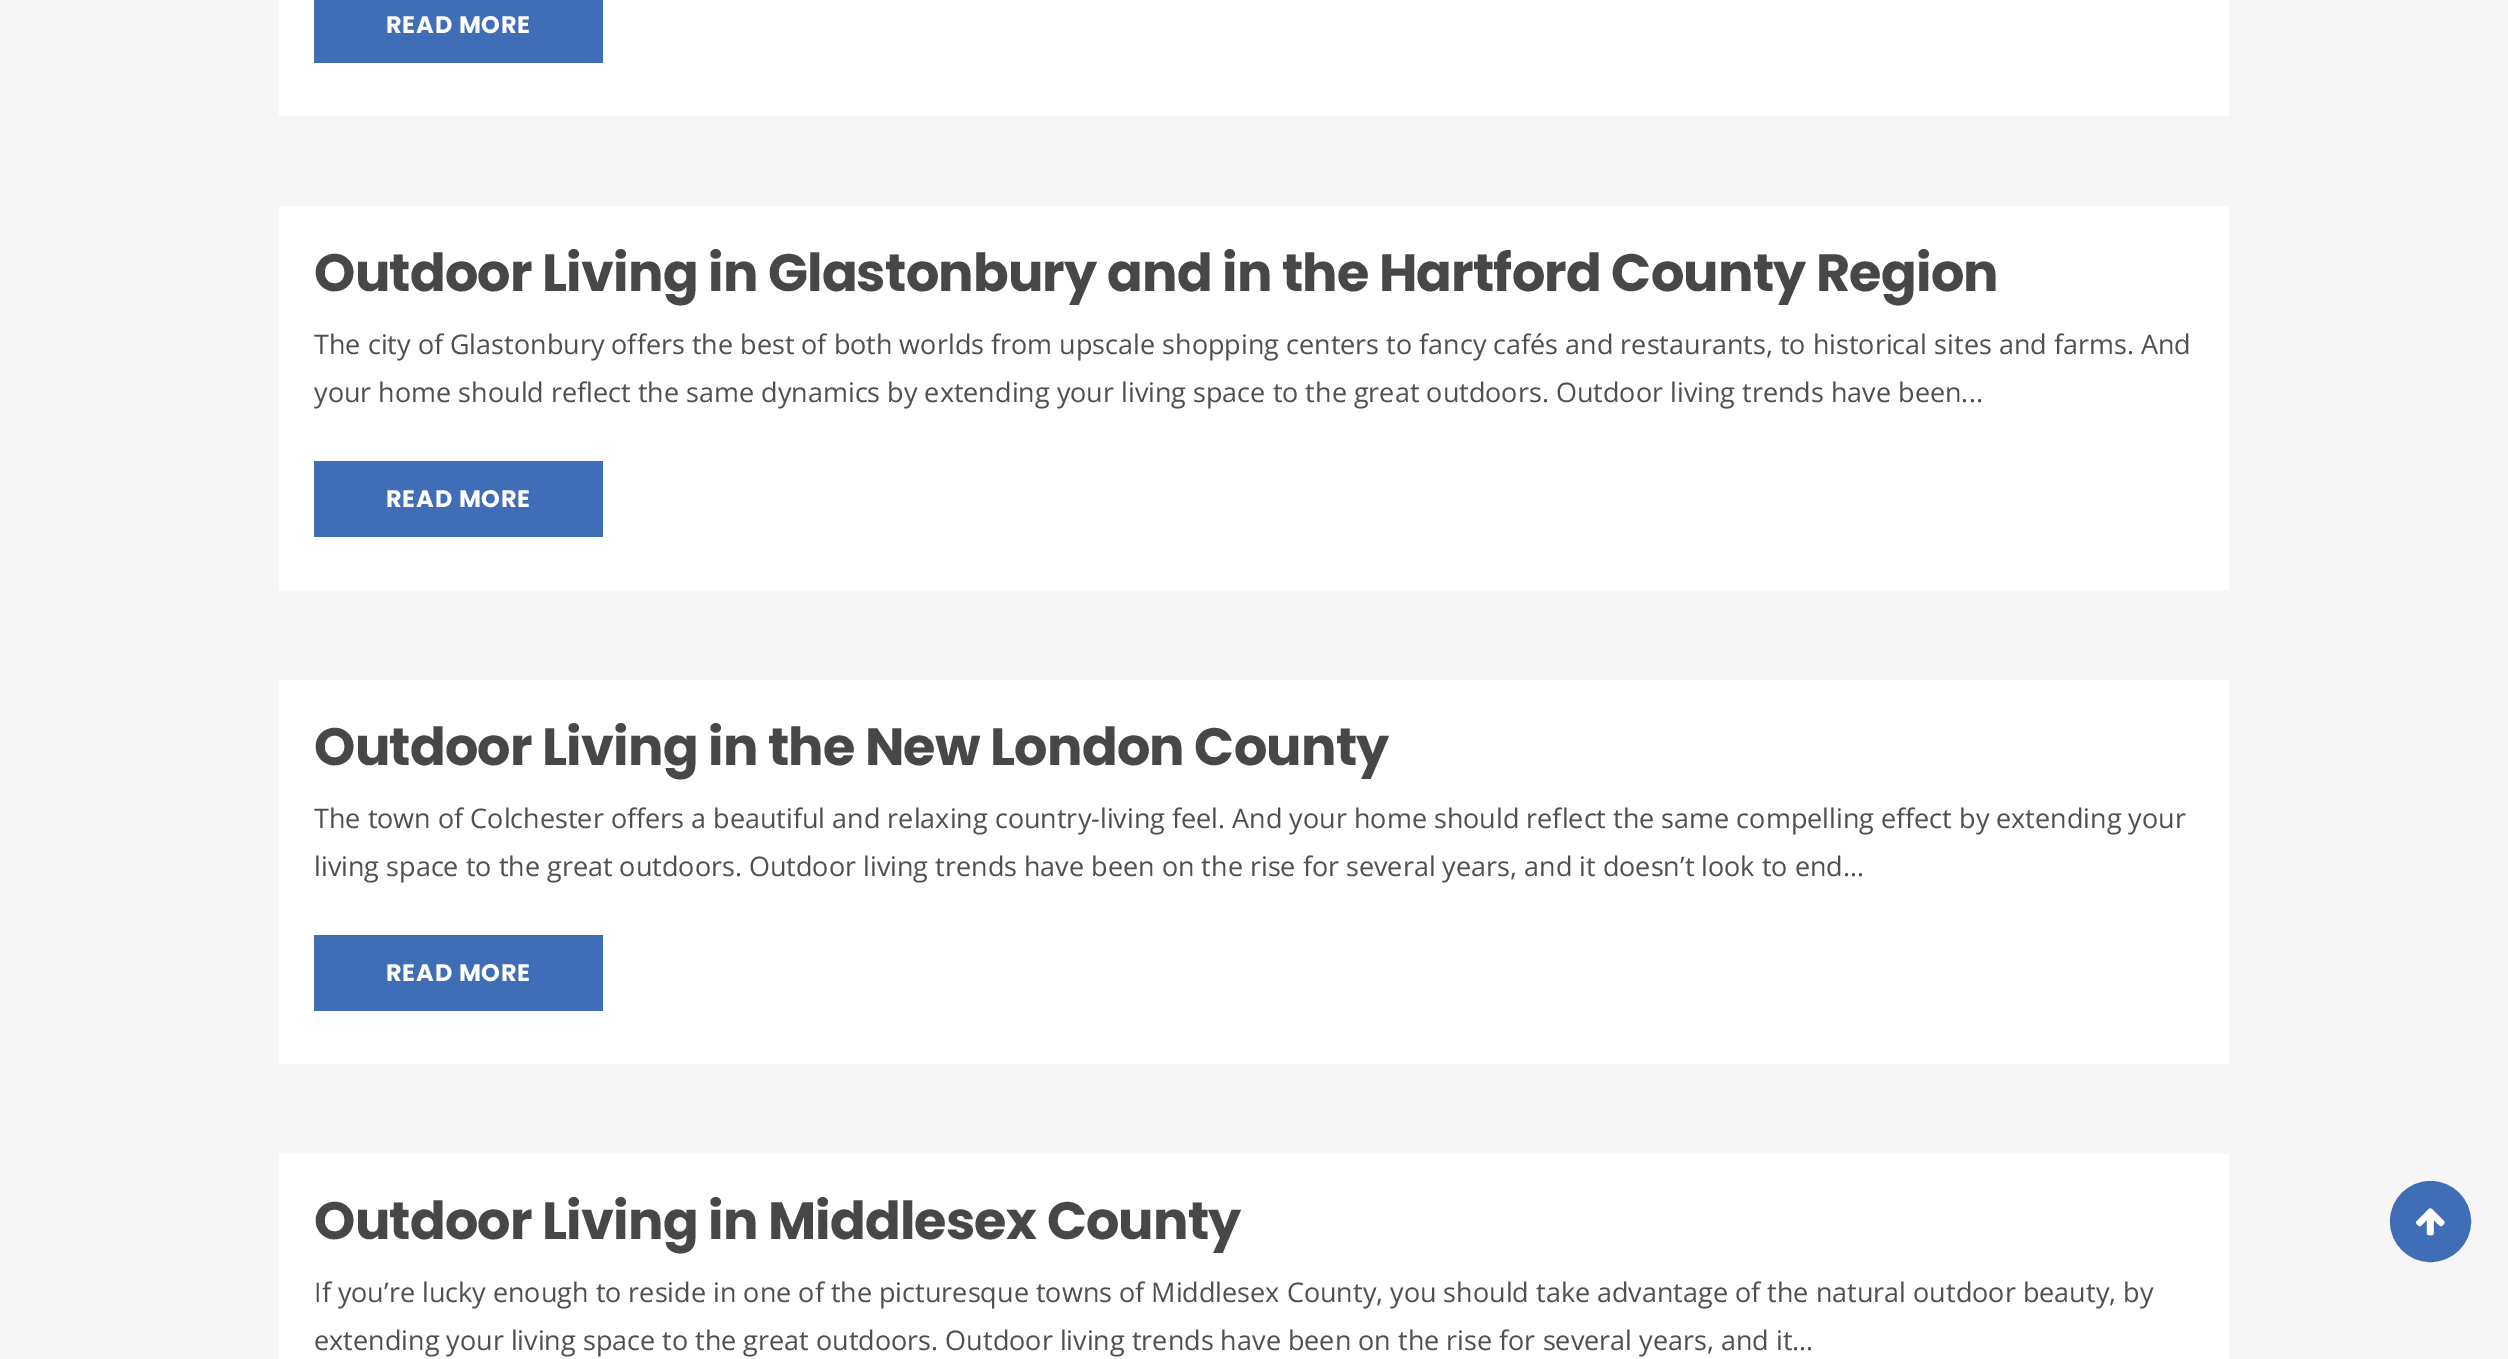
%!PS-Adobe-3.0
%%BoundingBox: 0 0 2508 1359
%%LanguageLevel: 3
%%Pages: 1
%%EndComments
%%BeginProlog
/drawimage { 5 dict begin { /h /w /y /x /name } { exch def } forall
  gsave x y translate w h scale
  w h 8 [w 0 0 h 0 0] name (r) file false 3 colorimage grestore end } def
%%EndProlog
%%BeginSetup
<< /PageSize [2508 1359] >> setpagedevice
%%EndSetup
%%Page: 1 1
0 1359 translate 1 -1 scale
4 setmiterlimit
0.965 setgray
0 0 2508 1359 rectfill
1 setgray
279 0 1950 116 rectfill
0.247 0.431 0.714 setrgbcolor
314 0 289 63 rectfill
1 setgray
279 206 1950 384 rectfill
0.247 0.431 0.714 setrgbcolor
314 461 289 76 rectfill
1 setgray
279 680 1950 384 rectfill
0.247 0.431 0.714 setrgbcolor
314 935 289 76 rectfill
1 setgray
279 1154 1950 205 rectfill
0.247 0.431 0.714 setrgbcolor
newpath 2430.5 1221.5 39.5 0 360 arc closepath gsave fill grestore
2 setlinewidth
stroke
(images/1.raw) 2416 1208 29 28 drawimage
/Poppins-Bold [24 0 0 -24 0 0] selectfont
1 setgray
386 33 moveto 0.75 0 (READ MORE) ashow
/Poppins-Bold [52.5 0 0 -52.5 0 0] selectfont
0.278 setgray
314 291 moveto -0.75 0 (Outdoor Living in Glastonbury and in the Hartford County Region) ashow
/OpenSans-Regular [27 0 0 -27 0 0] selectfont
0.31 setgray
314 354 moveto (The city of Glastonbury offers the best of both worlds from upscale shopping centers to fancy cafés and restaurants, to historical sites and farms. And) show
314 402 moveto (your home should reflect the same dynamics by extending your living space to the great outdoors. Outdoor living trends have been...) show
/Poppins-Bold [24 0 0 -24 0 0] selectfont
1 setgray
386 507 moveto 0.75 0 (READ MORE) ashow
/Poppins-Bold [52.5 0 0 -52.5 0 0] selectfont
0.278 setgray
314 765 moveto -0.75 0 (Outdoor Living in the New London County) ashow
/OpenSans-Regular [27 0 0 -27 0 0] selectfont
0.31 setgray
314 828 moveto (The town of Colchester offers a beautiful and relaxing country-living feel. And your home should reflect the same compelling effect by extending your) show
314 876 moveto (living space to the great outdoors. Outdoor living trends have been on the rise for several years, and it doesn’t look to end...) show
/Poppins-Bold [24 0 0 -24 0 0] selectfont
1 setgray
386 981 moveto 0.75 0 (READ MORE) ashow
/Poppins-Bold [52.5 0 0 -52.5 0 0] selectfont
0.278 setgray
314 1239 moveto -0.75 0 (Outdoor Living in Middlesex County) ashow
/OpenSans-Regular [27 0 0 -27 0 0] selectfont
0.31 setgray
314 1302 moveto (If you’re lucky enough to reside in one of the picturesque towns of Middlesex County, you should take advantage of the natural outdoor beauty, by) show
314 1350 moveto (extending your living space to the great outdoors. Outdoor living trends have been on the rise for several years, and it...) show
showpage
%%EOF
